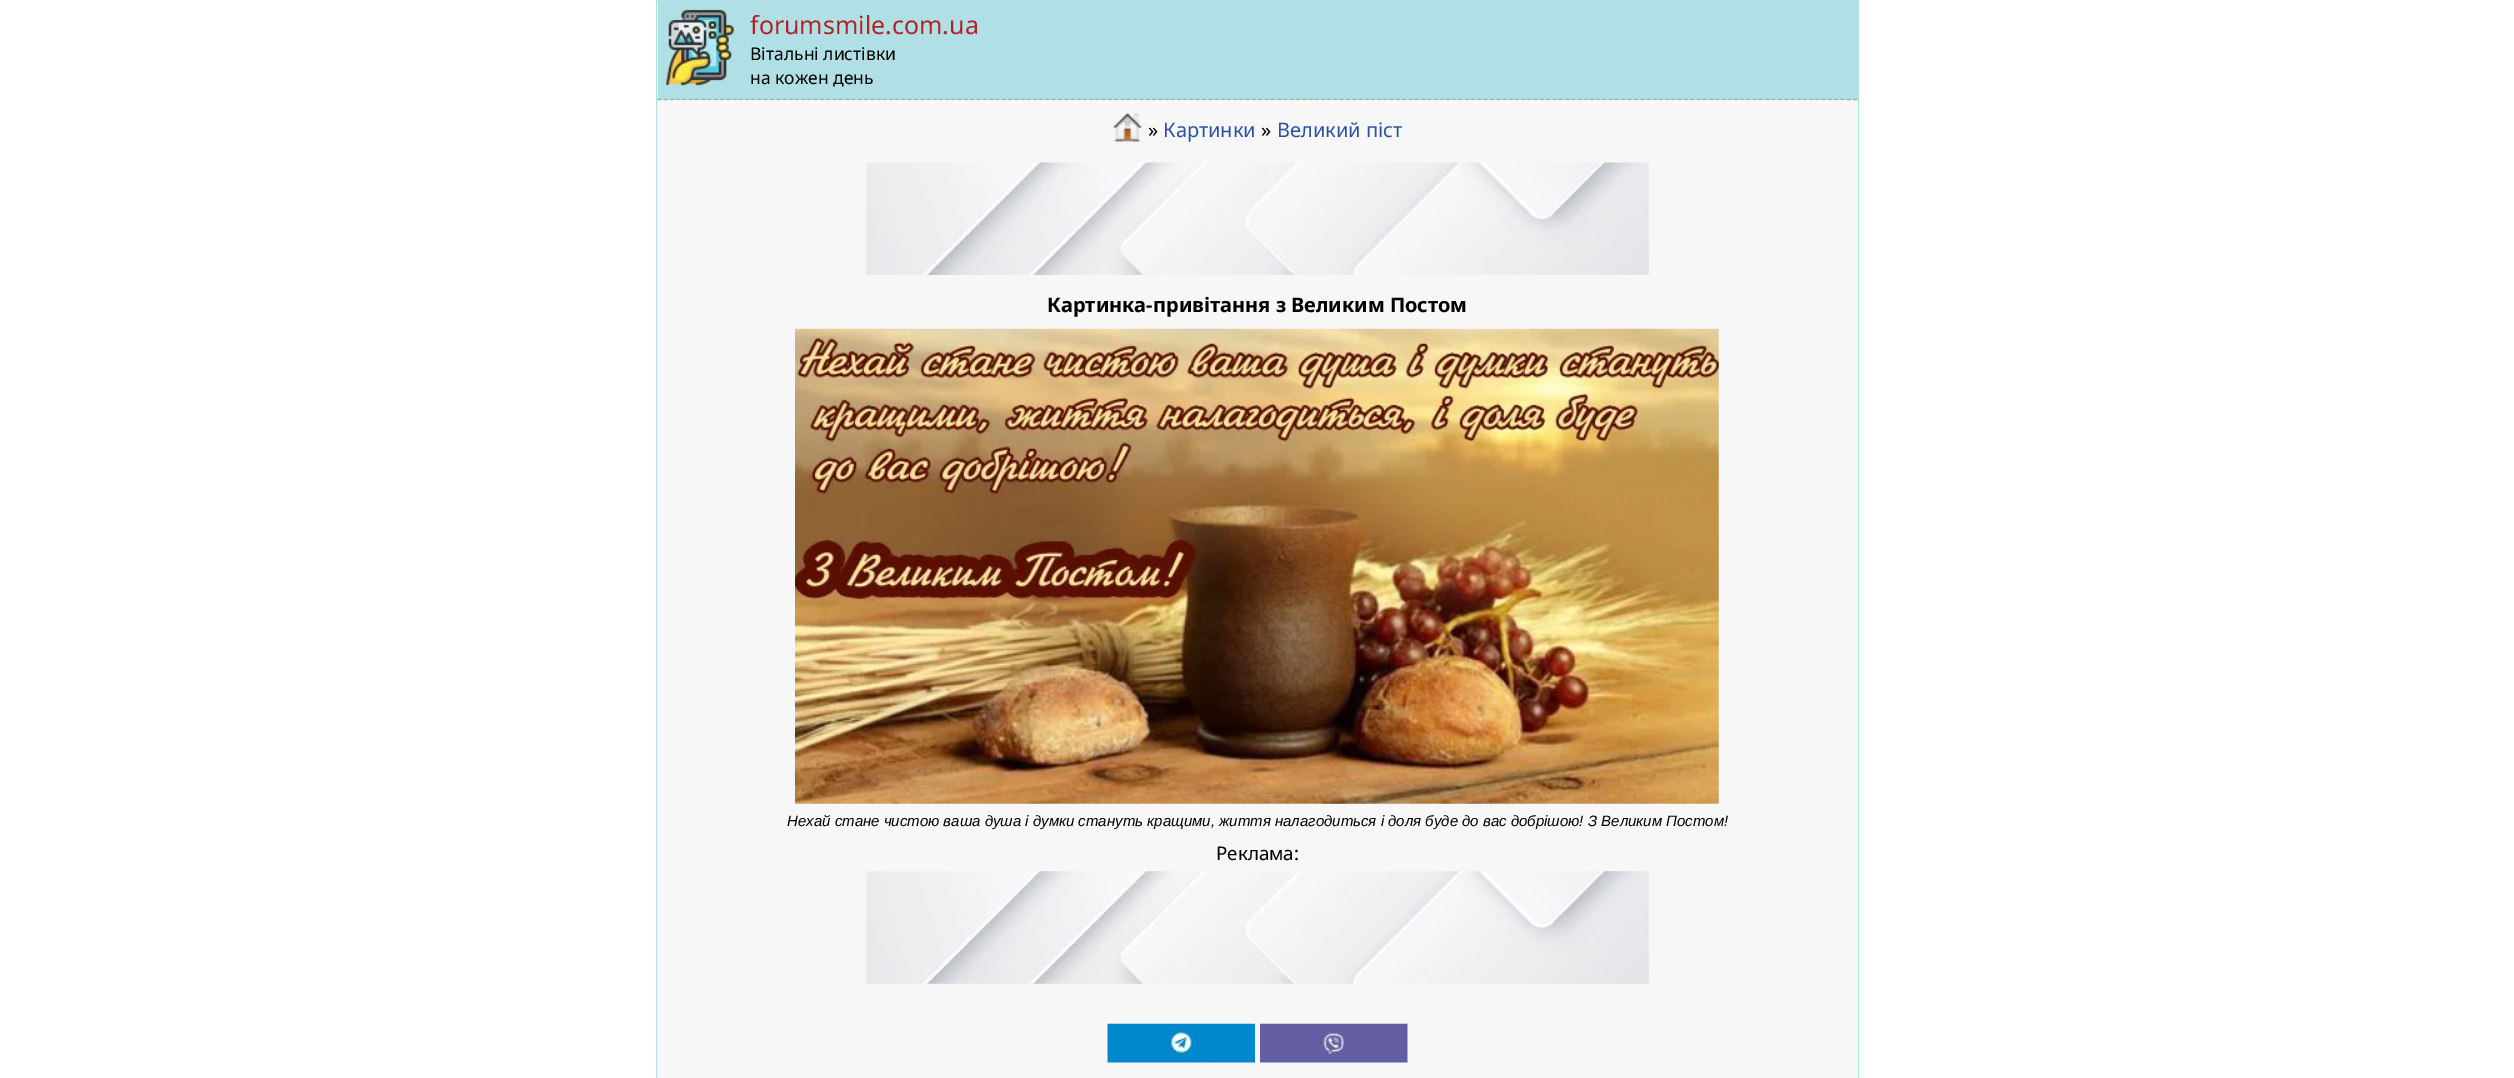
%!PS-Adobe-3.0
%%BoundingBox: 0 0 2514 1078
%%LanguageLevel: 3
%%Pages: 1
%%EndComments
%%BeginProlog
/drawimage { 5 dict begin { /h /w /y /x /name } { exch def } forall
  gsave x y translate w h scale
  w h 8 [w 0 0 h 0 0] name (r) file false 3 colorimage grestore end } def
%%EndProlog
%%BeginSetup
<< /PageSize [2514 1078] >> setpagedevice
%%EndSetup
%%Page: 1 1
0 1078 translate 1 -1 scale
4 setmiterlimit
1 setgray
0 0 2514 1078 rectfill
0.69 0.878 0.902 setrgbcolor
656.5 0.5 1202 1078 rectstroke
0.969 setgray
658 100 1200 978 rectfill
0.69 0.878 0.902 setrgbcolor
658 1 1200 99 rectfill
0.561 0.737 0.561 setrgbcolor
1.2 setlinewidth
[3.75 2.51] 0 setdash
newpath 657.5 99.5 moveto 1857.5 99.5 lineto stroke
(images/1.raw) 666 9 68 77 drawimage
0.969 setgray
670 100 1175 1 rectfill
(images/2.raw) 1113 112 29 31 drawimage
(images/3.raw) 866 162 783 113 drawimage
(images/4.raw) 795 328 924 476 drawimage
(images/5.raw) 866 871 783 113 drawimage
(images/6.raw) 1107 1023 148 40 drawimage
(images/7.raw) 1260 1023 148 40 drawimage
/NotoSans-Regular [25 0 0 -25 0 0] selectfont
0.698 0.133 0.133 setrgbcolor
750 34 moveto (forumsmile.com.ua) show
/NotoSans-Regular [17.5 0 0 -17.5 0 0] selectfont
0 setgray
750 60 moveto (Вітальні листівки) show
750 84 moveto (на кожен день) show
/NotoSans-Regular [20 0 0 -20 0 0] selectfont
1148 137 moveto (») show
0.169 0.31 0.655 setrgbcolor
1163 137 moveto (Картинки) show
0 setgray
1261 137 moveto (») show
0.169 0.31 0.655 setrgbcolor
1277 137 moveto (Великий піст) show
/NotoSans-Bold [20 0 0 -20 0 0] selectfont
0 setgray
1047 312 moveto (Картинка-привітання з Великим Постом) show
/LiberationSans-Italic [15 0 0 -15 0 0] selectfont
787 826 moveto (Нехай стане чистою ваша душа і думки стануть кращими, життя налагодиться і доля буде до вас добрішою! З Великим Постом!) show
/NotoSans-Regular [18.75 0 0 -18.75 0 0] selectfont
1216 860 moveto (Реклама:) show
showpage
%%EOF
